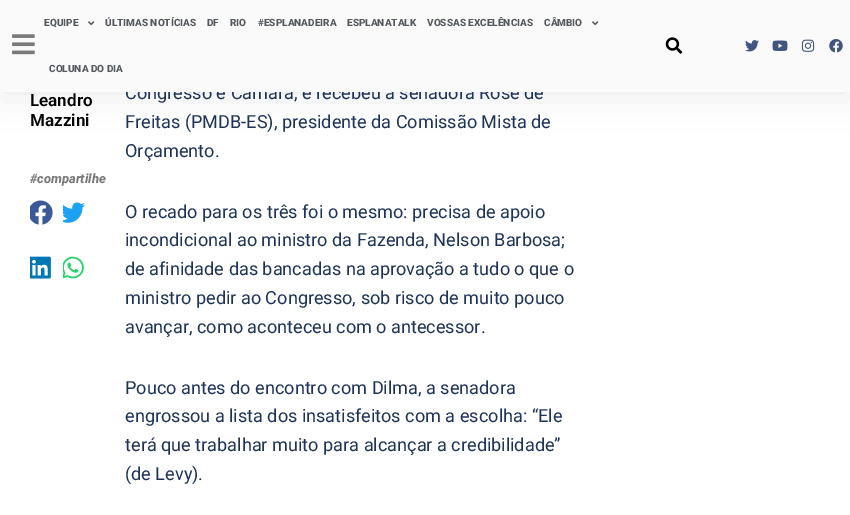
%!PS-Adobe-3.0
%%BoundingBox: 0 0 850 515
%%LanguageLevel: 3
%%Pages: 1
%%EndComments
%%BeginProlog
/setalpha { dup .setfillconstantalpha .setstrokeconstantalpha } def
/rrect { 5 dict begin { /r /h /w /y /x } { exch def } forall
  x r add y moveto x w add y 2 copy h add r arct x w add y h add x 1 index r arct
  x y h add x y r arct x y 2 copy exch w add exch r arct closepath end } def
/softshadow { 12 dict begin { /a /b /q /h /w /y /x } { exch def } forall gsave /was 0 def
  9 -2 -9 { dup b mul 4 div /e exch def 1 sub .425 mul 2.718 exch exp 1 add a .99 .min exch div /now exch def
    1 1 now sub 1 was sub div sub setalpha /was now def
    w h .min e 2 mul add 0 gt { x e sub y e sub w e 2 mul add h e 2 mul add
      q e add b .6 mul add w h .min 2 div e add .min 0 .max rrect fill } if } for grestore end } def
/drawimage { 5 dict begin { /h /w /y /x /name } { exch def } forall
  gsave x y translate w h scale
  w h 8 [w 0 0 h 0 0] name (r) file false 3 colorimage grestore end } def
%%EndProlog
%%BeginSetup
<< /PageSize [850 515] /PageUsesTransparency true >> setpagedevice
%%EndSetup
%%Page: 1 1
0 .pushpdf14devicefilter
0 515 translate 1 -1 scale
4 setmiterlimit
1 setgray
0 0 850 515 rectfill
0.004 setgray
0 -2 850 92 0 19 0.11 softshadow
(images/8.raw) 30 200 23 25 drawimage
(images/9.raw) 63 202 22 21 drawimage
(images/10.raw) 30 256 21 23 drawimage
(images/11.raw) 63 256 21 23 drawimage
/Roboto-SemiBold [17 0 0 -17 0 0] selectfont
0 setgray
30 106 moveto (Leandro) show
30 126 moveto (Mazzini) show
/Roboto-ExtraBoldItalic [13 0 0 -13 0 0] selectfont
0.478 setgray
30 183 moveto (#compartilhe) show
/Roboto-Regular [18.1 0 0 -18.1 0 0] selectfont
0.114 0.2 0.345 setrgbcolor
125 99 moveto (Congresso e Câmara, e recebeu a senadora Rose de) show
0.98 setgray
0 0 850 92 rectfill
/Roboto-ExtraBold [10 0 0 -10 0 0] selectfont
0.329 0.349 0.373 setrgbcolor
49 72 moveto (COLUNA DO DIA) show
(images/2.raw) 592 21 7 5 drawimage
544 26 moveto (CÂMBIO) show
427 26 moveto (VOSSAS EXCELÊNCIAS) show
347 26 moveto (ESPLANATALK) show
258 26 moveto (#ESPLANADEIRA) show
230 26 moveto (RIO) show
207 26 moveto (DF) show
105 26 moveto (ÚLTIMAS NOTÍCIAS) show
(images/2.raw) 88 21 7 5 drawimage
44 26 moveto (EQUIPE) show
(images/7.raw) 829 39 14 14 drawimage
(images/6.raw) 801 39 14 13 drawimage
(images/5.raw) 772 40 16 11 drawimage
(images/4.raw) 745 40 14 12 drawimage
(images/3.raw) 665 37 18 17 drawimage
(images/1.raw) 12 34 23 21 drawimage
/Roboto-Regular [18.1 0 0 -18.1 0 0] selectfont
0.114 0.2 0.345 setrgbcolor
125 128 moveto (Freitas \(PMDB-ES\), presidente da Comissão Mista de) show
125 157 moveto (Orçamento.) show
125 218 moveto (O recado para os três foi o mesmo: precisa de apoio) show
125 246 moveto (incondicional ao ministro da Fazenda, Nelson Barbosa;) show
125 275 moveto (de afinidade das bancadas na aprovação a tudo o que o) show
125 304 moveto (ministro pedir ao Congresso, sob risco de muito pouco) show
125 333 moveto (avançar, como aconteceu com o antecessor.) show
125 394 moveto (Pouco antes do encontro com Dilma, a senadora) show
125 422 moveto (engrossou a lista dos insatisfeitos com a escolha: “Ele) show
125 451 moveto (terá que trabalhar muito para alcançar a credibilidade”) show
125 480 moveto (\(de Levy\).) show
.poppdf14devicefilter showpage
%%EOF
